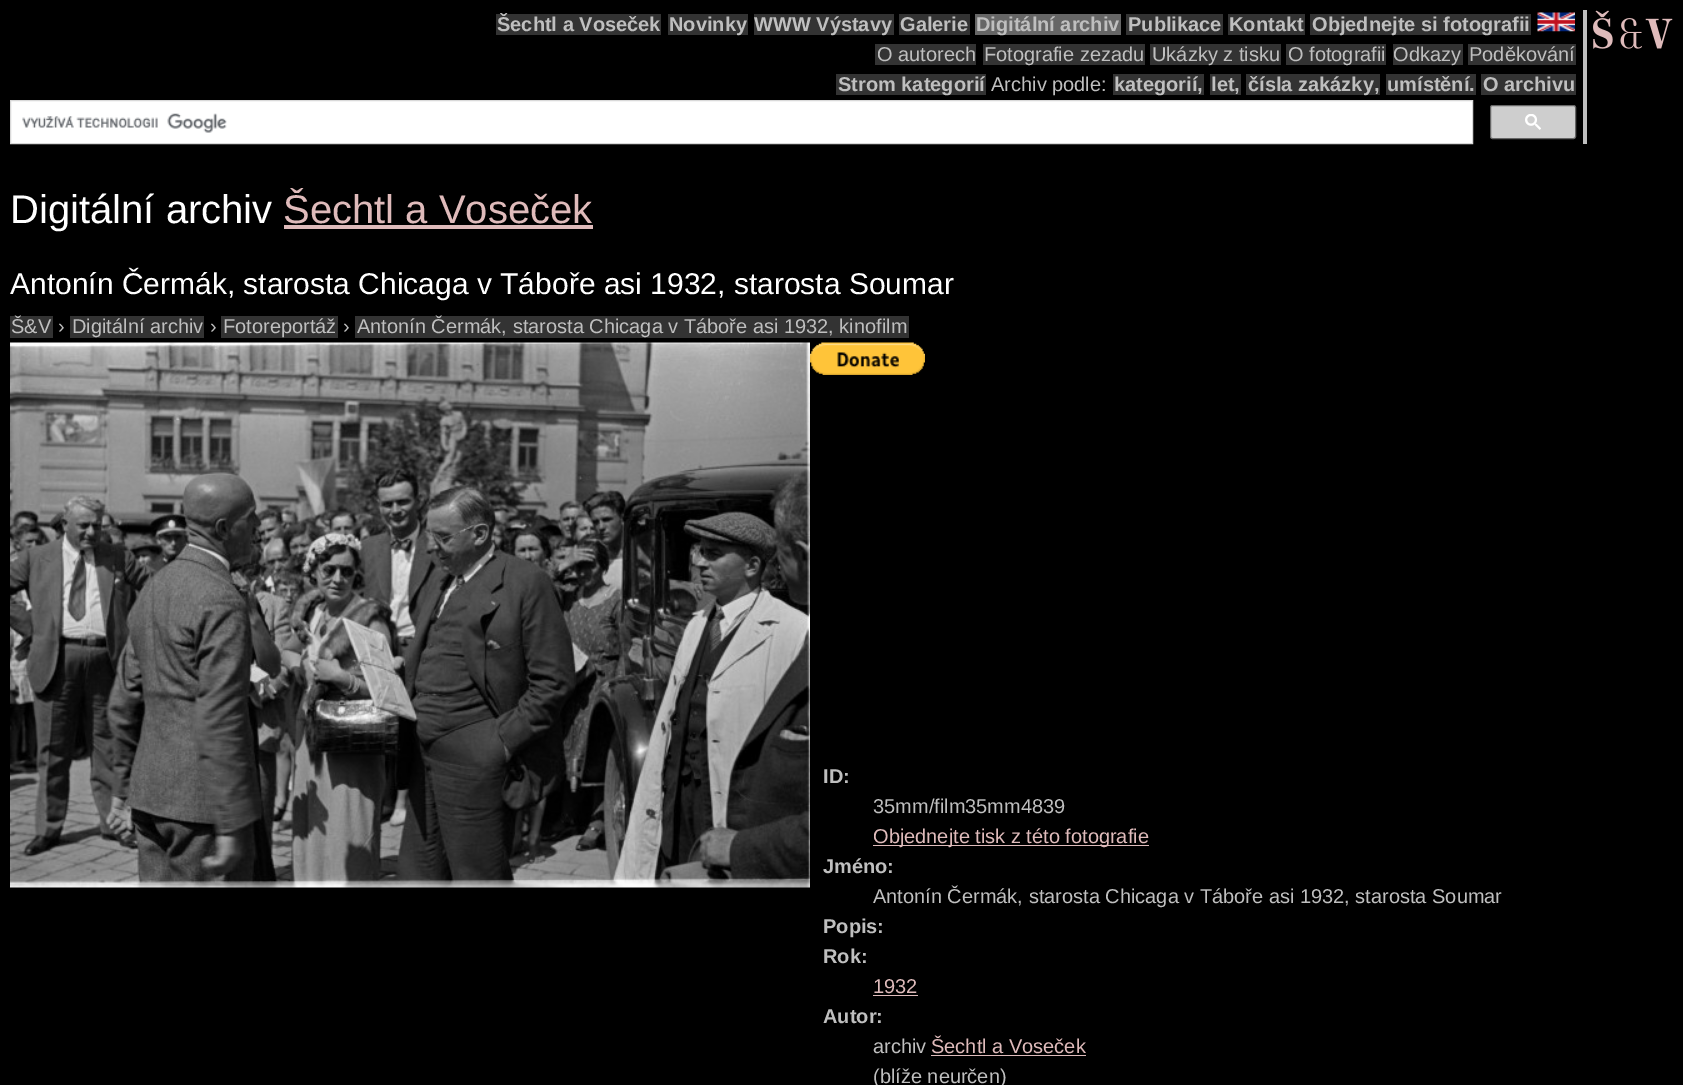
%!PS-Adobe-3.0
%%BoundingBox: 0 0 1683 1085
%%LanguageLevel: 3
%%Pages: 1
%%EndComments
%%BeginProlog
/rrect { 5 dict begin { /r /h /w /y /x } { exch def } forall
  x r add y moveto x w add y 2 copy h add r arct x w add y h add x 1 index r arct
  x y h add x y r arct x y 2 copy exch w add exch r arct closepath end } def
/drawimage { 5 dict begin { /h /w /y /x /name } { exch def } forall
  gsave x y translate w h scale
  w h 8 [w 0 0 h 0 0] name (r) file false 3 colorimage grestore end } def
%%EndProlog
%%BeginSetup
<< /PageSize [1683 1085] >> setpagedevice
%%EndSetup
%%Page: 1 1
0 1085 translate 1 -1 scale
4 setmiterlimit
0 setgray
0 0 1683 1085 rectfill
0.749 setgray
1583 10 4 134 rectfill
0.2 setgray
496 14 165 21 rectfill
668 14 80 21 rectfill
754 14 140 21 rectfill
899 14 71 21 rectfill
0.4 setgray
975 14 146 21 rectfill
0.2 setgray
1126 14 97 21 rectfill
1228 14 77 21 rectfill
1310 14 221 21 rectfill
(images/1.raw) 1537 12 38 20 drawimage
875 44 101 21 rectfill
983 44 162 21 rectfill
1150 44 131 21 rectfill
1286 44 100 21 rectfill
1393 44 70 21 rectfill
1468 44 108 21 rectfill
836 74 150 21 rectfill
1113 74 91 21 rectfill
1210 74 31 21 rectfill
1246 74 134 21 rectfill
1386 74 90 21 rectfill
1481 74 95 21 rectfill
1 setgray
newpath 10.5 100.5 moveto 1472.5 100.5 lineto 1472.5 143.5 lineto 10.5 143.5 lineto closepath gsave fill grestore
0.851 setgray
stroke
(images/2.raw) 22 113 205 20 drawimage
0.808 setgray
1490.5 105.5 85 33 2 rrect gsave fill grestore
0.4 setgray
stroke
(images/3.raw) 1525 114 16 16 drawimage
(images/4.raw) 1593 10 80 39 drawimage
0.875 0.733 0.733 setrgbcolor
284 225 309 4 rectfill
0.2 setgray
10 316 43 22 rectfill
70 316 134 22 rectfill
221 316 117 22 rectfill
355 316 554 22 rectfill
(images/5.raw) 10 342 800 546 drawimage
(images/6.raw) 810 342 115 33 drawimage
0.875 0.733 0.733 setrgbcolor
873 845 276 1 rectfill
873 995 45 1 rectfill
931 1055 155 1 rectfill
/LiberationSans-Bold [20 0 0 -20 0 0] selectfont
0.749 setgray
497 31 moveto (Šechtl a Voseček) show
669 31 moveto (Novinky) show
754 31 moveto (WWW Výstavy) show
900 31 moveto (Galerie) show
976 31 moveto (Digitální archiv) show
1128 31 moveto (Publikace) show
1229 31 moveto (Kontakt) show
1312 31 moveto (Objednejte si fotografii) show
/LiberationSans-Regular [20 0 0 -20 0 0] selectfont
877 61 moveto (O autorech) show
984 61 moveto (Fotografie zezadu) show
1152 61 moveto (Ukázky z tisku) show
1288 61 moveto (O fotografii) show
1393 61 moveto (Odkazy) show
1469 61 moveto (Poděkování) show
/LiberationSans-Bold [20 0 0 -20 0 0] selectfont
838 91 moveto (Strom kategorií) show
/LiberationSans-Regular [20 0 0 -20 0 0] selectfont
991 91 moveto (Archiv podle:) show
/LiberationSans-Bold [20 0 0 -20 0 0] selectfont
1114 91 moveto (kategorií,) show
1211 91 moveto (let,) show
1248 91 moveto (čísla zakázky,) show
1387 91 moveto (umístění.) show
1483 91 moveto (O archivu) show
/LiberationSans-Regular [40 0 0 -40 0 0] selectfont
1 setgray
10 223 moveto (Digitální archiv) show
0.875 0.733 0.733 setrgbcolor
283 223 moveto (Šechtl a Voseček) show
/LiberationSans-Regular [30 0 0 -30 0 0] selectfont
1 setgray
10 294 moveto (Antonín Čermák, starosta Chicaga v Táboře asi 1932, starosta Soumar) show
/LiberationSans-Regular [20 0 0 -20 0 0] selectfont
0.749 setgray
11 333 moveto (Š&V) show
58 333 moveto (›) show
72 333 moveto (Digitální archiv) show
210 333 moveto (›) show
223 333 moveto (Fotoreportáž) show
343 333 moveto (›) show
357 333 moveto (Antonín Čermák, starosta Chicaga v Táboře asi 1932, kinofilm) show
/LiberationSans-Bold [20 0 0 -20 0 0] selectfont
823 783 moveto (ID:) show
/LiberationSans-Regular [20 0 0 -20 0 0] selectfont
873 813 moveto (35mm/film35mm4839) show
0.875 0.733 0.733 setrgbcolor
873 843 moveto (Objednejte tisk z této fotografie) show
/LiberationSans-Bold [20 0 0 -20 0 0] selectfont
0.749 setgray
823 873 moveto (Jméno:) show
/LiberationSans-Regular [20 0 0 -20 0 0] selectfont
873 903 moveto (Antonín Čermák, starosta Chicaga v Táboře asi 1932, starosta Soumar) show
/LiberationSans-Bold [20 0 0 -20 0 0] selectfont
823 933 moveto (Popis:) show
823 963 moveto (Rok:) show
/LiberationSans-Regular [20 0 0 -20 0 0] selectfont
0.875 0.733 0.733 setrgbcolor
873 993 moveto (1932) show
/LiberationSans-Bold [20 0 0 -20 0 0] selectfont
0.749 setgray
823 1023 moveto (Autor:) show
/LiberationSans-Regular [20 0 0 -20 0 0] selectfont
873 1053 moveto (archiv) show
0.875 0.733 0.733 setrgbcolor
931 1053 moveto (Šechtl a Voseček) show
0.749 setgray
873 1083 moveto (\(blíže neurčen\)) show
showpage
%%EOF
